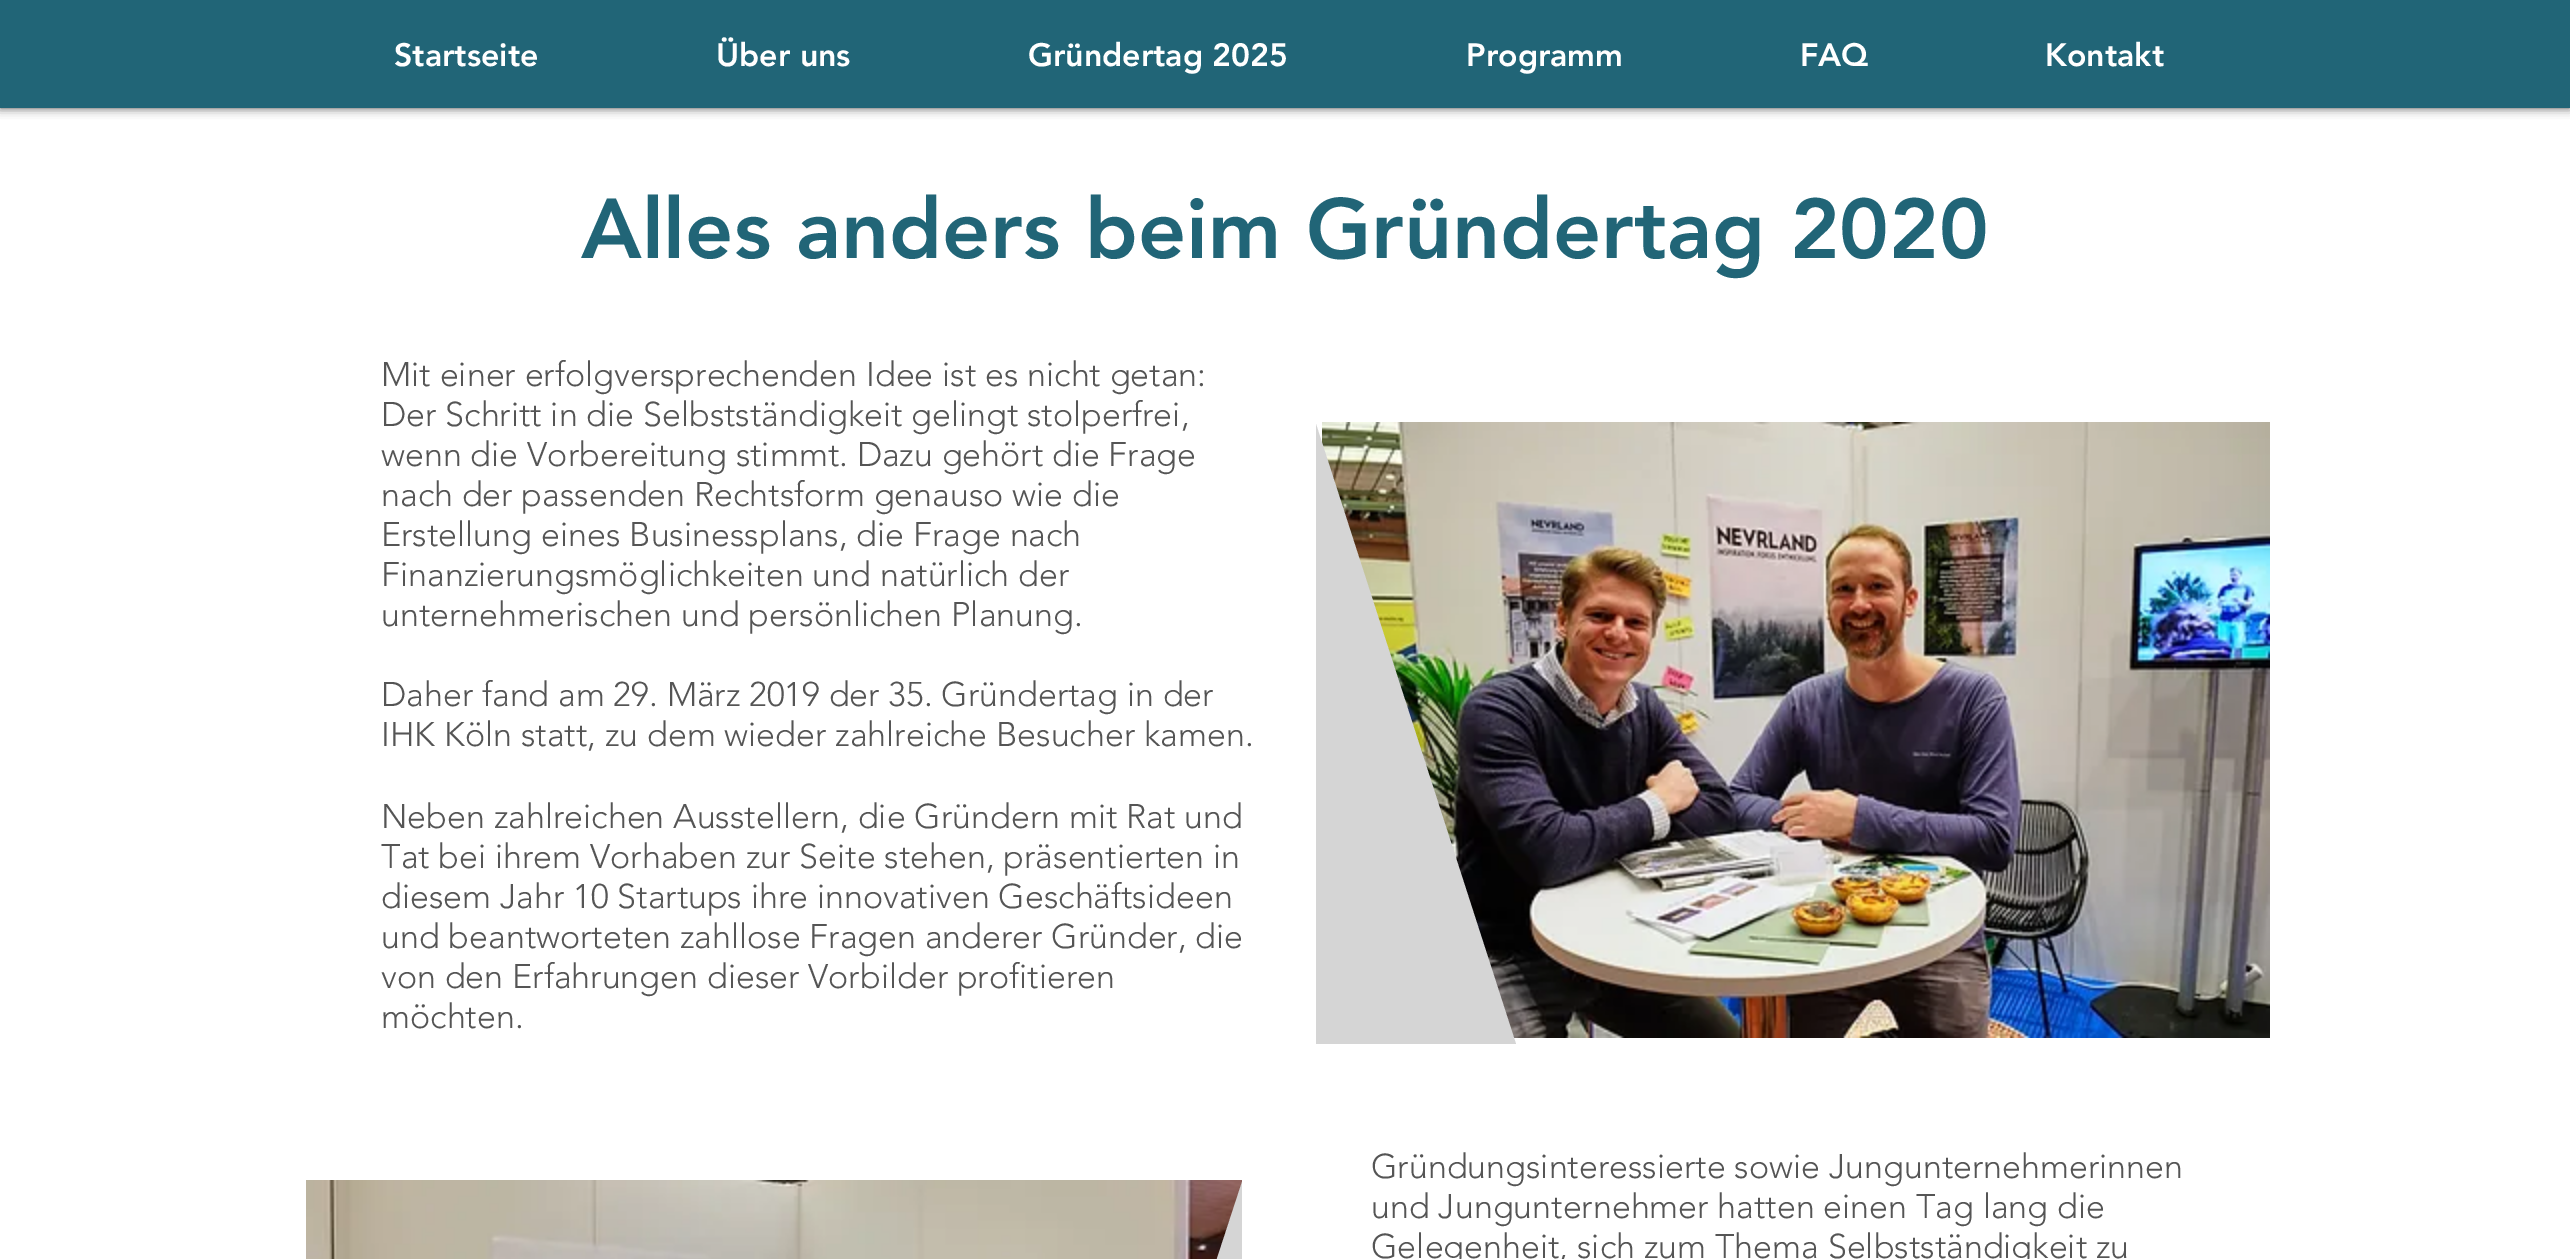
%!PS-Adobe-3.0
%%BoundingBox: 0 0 2570 1259
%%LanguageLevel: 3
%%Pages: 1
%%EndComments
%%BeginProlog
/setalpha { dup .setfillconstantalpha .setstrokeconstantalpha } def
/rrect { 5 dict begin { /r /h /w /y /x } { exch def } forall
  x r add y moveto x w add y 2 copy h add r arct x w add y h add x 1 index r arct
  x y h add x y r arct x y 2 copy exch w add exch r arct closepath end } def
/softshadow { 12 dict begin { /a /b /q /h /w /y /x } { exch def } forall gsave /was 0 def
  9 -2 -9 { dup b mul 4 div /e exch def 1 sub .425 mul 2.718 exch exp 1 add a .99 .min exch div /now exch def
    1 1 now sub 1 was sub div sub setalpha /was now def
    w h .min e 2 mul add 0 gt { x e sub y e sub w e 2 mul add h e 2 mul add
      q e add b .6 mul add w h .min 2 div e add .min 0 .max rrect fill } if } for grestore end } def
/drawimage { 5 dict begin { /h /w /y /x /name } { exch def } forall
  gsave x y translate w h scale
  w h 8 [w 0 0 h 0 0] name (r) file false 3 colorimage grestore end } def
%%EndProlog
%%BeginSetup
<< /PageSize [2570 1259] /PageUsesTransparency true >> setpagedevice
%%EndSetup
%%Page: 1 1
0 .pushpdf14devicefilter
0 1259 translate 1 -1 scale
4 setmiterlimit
1 setgray
0 0 2570 1259 rectfill
0 setgray
0 0 2570 108 0 5 0.7 softshadow
0.129 0.396 0.467 setrgbcolor
0 0 2570 108 rectfill
(images/1.raw) 1322 422 948 616 drawimage
0.835 setgray
newpath 1516 1044 moveto 1316 1044 lineto 1316 424 lineto closepath fill
(images/2.raw) 306 1180 936 79 drawimage
newpath 1242 1182 moveto 1242 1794 lineto 1042 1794 lineto closepath fill
/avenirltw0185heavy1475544-Black [32 0 0 -32 0 0] selectfont
1 setgray
394 66 moveto (Startseite) show
716 66 moveto (Über uns) show
1028 66 moveto (Gründertag 2025) show
1466 66 moveto (Programm) show
1800 66 moveto (FAQ) show
2045 66 moveto (Kontakt) show
/avenirltw0185heavy1475544-Black [84 0 0 -84 0 0] selectfont
0.129 0.396 0.467 setrgbcolor
581 258 moveto (Alles anders beim Gründertag 2020) show
/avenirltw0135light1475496-Light [34 0 0 -34 0 0] selectfont
0.333 setgray
381 386 moveto (Mit einer erfolgversprechenden Idee ist es nicht getan:) show
381 426 moveto (Der Schritt in die Selbstständigkeit gelingt stolperfrei,) show
381 466 moveto (wenn die Vorbereitung stimmt. Dazu gehört die Frage) show
381 506 moveto (nach der passenden Rechtsform genauso wie die) show
381 546 moveto (Erstellung eines Businessplans, die Frage nach) show
381 586 moveto (Finanzierungsmöglichkeiten und natürlich der) show
381 626 moveto (unternehmerischen und persönlichen Planung.) show
381 706 moveto (Daher fand am 29. März 2019 der 35. Gründertag in der) show
381 746 moveto (IHK Köln statt, zu dem wieder zahlreiche Besucher kamen.) show
381 828 moveto (Neben zahlreichen Ausstellern, die Gründern mit Rat und) show
381 868 moveto (Tat bei ihrem Vorhaben zur Seite stehen, präsentierten in) show
381 908 moveto (diesem Jahr 10 Startups ihre innovativen Geschäftsideen) show
381 948 moveto (und beantworteten zahllose Fragen anderer Gründer, die) show
381 988 moveto (von den Erfahrungen dieser Vorbilder profitieren) show
381 1028 moveto (möchten.) show
1371 1178 moveto (Gründungsinteressierte sowie Jungunternehmerinnen) show
1371 1218 moveto (und Jungunternehmer hatten einen Tag lang die) show
1371 1258 moveto (Gelegenheit, sich zum Thema Selbstständigkeit zu) show
.poppdf14devicefilter showpage
%%EOF
